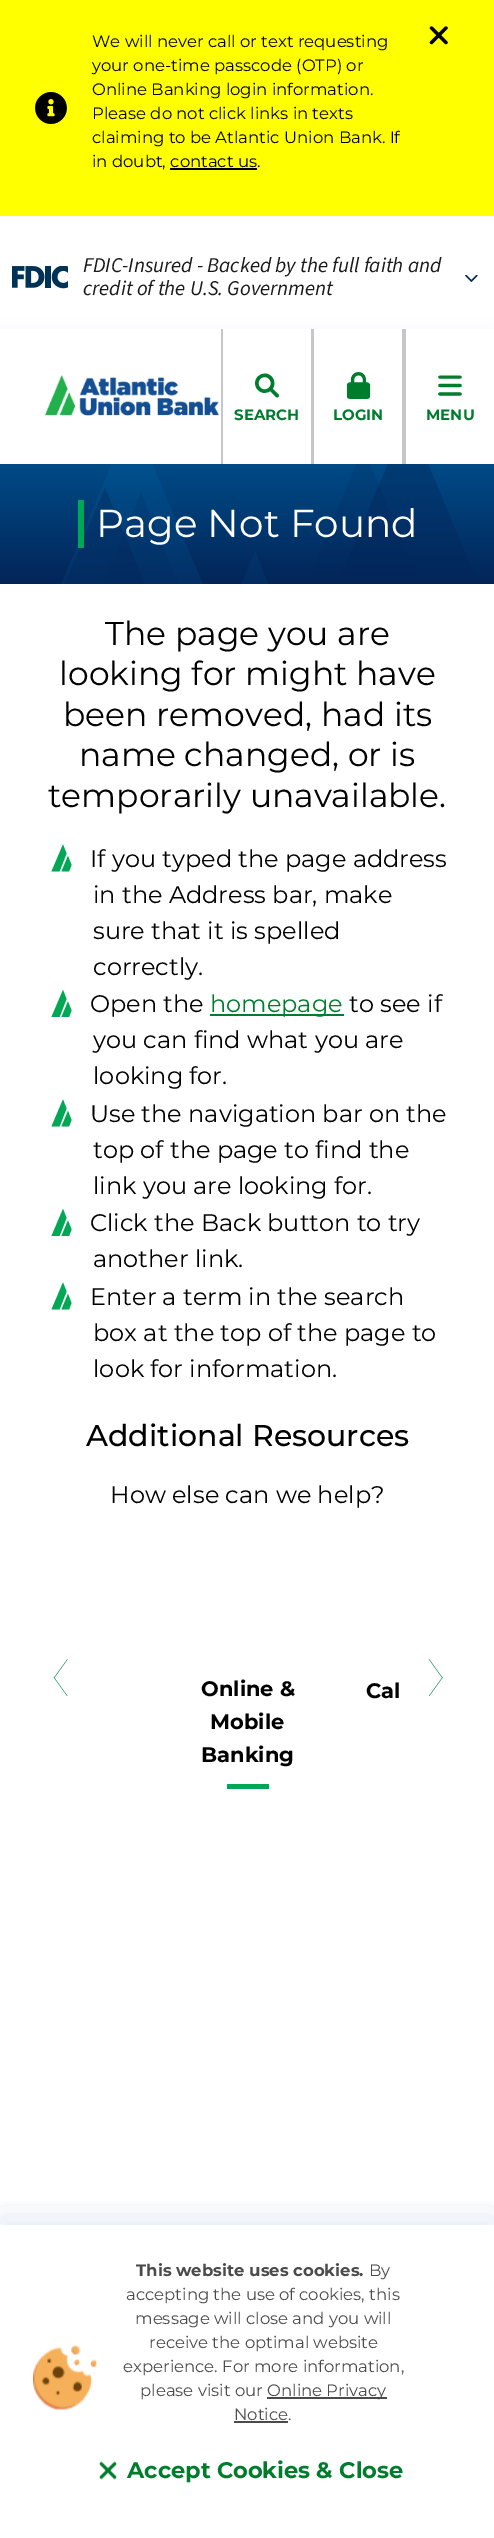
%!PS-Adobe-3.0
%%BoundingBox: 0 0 494 2538
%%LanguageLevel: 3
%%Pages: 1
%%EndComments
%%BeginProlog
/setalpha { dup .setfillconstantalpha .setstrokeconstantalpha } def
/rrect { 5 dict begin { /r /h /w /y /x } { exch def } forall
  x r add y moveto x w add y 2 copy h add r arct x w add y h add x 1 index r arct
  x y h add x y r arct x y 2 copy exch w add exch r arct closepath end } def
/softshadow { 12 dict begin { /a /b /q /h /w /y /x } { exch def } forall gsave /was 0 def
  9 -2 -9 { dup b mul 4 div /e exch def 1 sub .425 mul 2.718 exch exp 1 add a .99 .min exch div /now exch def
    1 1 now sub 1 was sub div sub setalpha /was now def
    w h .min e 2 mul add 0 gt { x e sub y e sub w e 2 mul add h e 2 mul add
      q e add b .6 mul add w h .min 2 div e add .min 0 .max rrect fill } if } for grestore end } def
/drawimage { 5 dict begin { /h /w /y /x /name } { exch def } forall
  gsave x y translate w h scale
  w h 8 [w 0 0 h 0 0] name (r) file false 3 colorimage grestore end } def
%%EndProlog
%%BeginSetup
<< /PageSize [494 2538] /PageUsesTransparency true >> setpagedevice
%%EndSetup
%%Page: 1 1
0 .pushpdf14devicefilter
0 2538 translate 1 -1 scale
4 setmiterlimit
1 setgray
0 0 494 2538 rectfill
1 1 0 setrgbcolor
0 0 494 216 rectfill
(images/1.raw) 35 92 32 32 drawimage
0 setgray
170 168 87 2 rectfill
(images/2.raw) 429 26 19 19 drawimage
(images/3.raw) 12 266 56 23 drawimage
(images/4.raw) 465 275 13 7 drawimage
gsave newpath 0 464 moveto 494 464 lineto 494 584 lineto 0 584 lineto closepath clip newpath
<< /ShadingType 2 /ColorSpace /DeviceRGB /Coords [248 464 248 584] /Extend [true true] /Function << /FunctionType 2 /Domain [0 1] /C0 [0 0.294 0.529] /C1 [0.012 0.145 0.349] /N 1 >> >> shfill grestore
gsave
0 464 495 120 rectclip
0.11 setalpha
0 0.518 0.792 setrgbcolor
newpath 132 416 moveto 246 687 lineto 18 687 lineto closepath fill
0.19 setalpha
0.012 0.145 0.349 setrgbcolor
newpath 363 448 moveto 474 712 lineto 253 712 lineto closepath fill
newpath 141 493 moveto 219 681 lineto 62 681 lineto closepath fill
0.39 setalpha
newpath 105 488 moveto 183 675 lineto 26 675 lineto closepath fill
newpath 408 416 moveto 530 708 lineto 285 708 lineto closepath fill
grestore
0 0.655 0.329 setrgbcolor
78 500 6 48 rectfill
0 0.294 0.529 setrgbcolor
0 338 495 135 0 9 0.11 softshadow
1 setgray
0 329 494 135 rectfill
(images/5.raw) 45 375 174 41 drawimage
0.776 setgray
311 329 3 135 rectfill
221 329 2 135 rectfill
(images/6.raw) 255 373 24 25 drawimage
402 329 4 135 rectfill
(images/7.raw) 346 372 25 27 drawimage
(images/8.raw) 438 375 24 21 drawimage
gsave
0 464 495 120 rectclip
0.07 setalpha
0 0.518 0.792 setrgbcolor
newpath 255 552 moveto 369 823 lineto 141 823 lineto closepath fill
grestore
0 0.655 0.329 setrgbcolor
newpath 61.5 871.5 moveto 68 856 lineto 71.5 865 lineto 69 871.5 lineto closepath 51.5 871.5 moveto 63 844.5 lineto 66.5 853.5 lineto 59.5 871.5 lineto closepath fill
newpath 61.5 1017 moveto 68 1001.5 lineto 71.5 1010.5 lineto 69 1017 lineto closepath 51.5 1017 moveto 63 990 lineto 66.5 999 lineto 59.5 1017 lineto closepath fill
0 0.486 0.176 setrgbcolor
210 1014 134 2 rectfill
0 0.655 0.329 setrgbcolor
newpath 61.5 1126.5 moveto 68 1111 lineto 71.5 1120 lineto 69 1126.5 lineto closepath 51.5 1126.5 moveto 63 1099.5 lineto 66.5 1108.5 lineto 59.5 1126.5 lineto closepath fill
newpath 61.5 1236 moveto 68 1220.5 lineto 71.5 1229.5 lineto 69 1236 lineto closepath 51.5 1236 moveto 63 1209 lineto 66.5 1218 lineto 59.5 1236 lineto closepath fill
newpath 61.5 1309.5 moveto 68 1294 lineto 71.5 1303 lineto 69 1309.5 lineto closepath 51.5 1309.5 moveto 63 1282.5 lineto 66.5 1291.5 lineto 59.5 1309.5 lineto closepath fill
(images/9.raw) 53 1659 15 38 drawimage
(images/10.raw) 428 1659 15 38 drawimage
227 1784 42 5 rectfill
gsave
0 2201 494 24 rectclip
0 0.294 0.529 setrgbcolor
0 2217 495 314 0 18 0.11 softshadow
grestore
(images/11.raw) 33 2345 65 66 drawimage
0.294 setgray
267 2397 120 2 rectfill
234 2421 54 2 rectfill
(images/12.raw) 99 2461 18 19 drawimage
/Montserrat-Regular [16.5 0 0 -16.5 0 0] selectfont
0 setgray
92 47 moveto (We will never call or text requesting) show
92 71 moveto (your one-time passcode \(OTP\) or) show
92 95 moveto (Online Banking login information.) show
92 119 moveto (Please do not click links in texts) show
92 143 moveto (claiming to be Atlantic Union Bank. If) show
92 167 moveto (in doubt, contact us.) show
/SourceSans3-Italic [21 0 0 -21 0 0] selectfont
0.106 setgray
83 272 moveto (FDIC-Insured - Backed by the full faith and) show
83 295 moveto (credit of the U.S. Government) show
/Montserrat-Bold [15 0 0 -15 0 0] selectfont
0 0.486 0.176 setrgbcolor
234 420 moveto (SEARCH) show
333 420 moveto (LOGIN) show
426 420 moveto (MENU) show
/Montserrat-Regular [39 0 0 -39 0 0] selectfont
1 setgray
96 537 moveto (Page Not Found) show
/Montserrat-Regular [33 0 0 -33 0 0] selectfont
0 setgray
105 645 moveto (The page you are) show
59 685 moveto (looking for might have) show
63 726 moveto (been removed, had its) show
79 766 moveto (name changed, or is) show
48 807 moveto (temporarily unavailable.) show
/Montserrat-Regular [24 0 0 -24 0 0] selectfont
90 867 moveto (If you typed the page address) show
93 903 moveto (in the Address bar, make) show
93 939 moveto (sure that it is spelled) show
93 975 moveto (correctly.) show
90 1012 moveto (Open the) show
0 0.486 0.176 setrgbcolor
210 1012 moveto (homepage) show
0 setgray
349 1012 moveto (to see if) show
93 1048 moveto (you can find what you are) show
93 1084 moveto (looking for.) show
90 1122 moveto (Use the navigation bar on the) show
93 1158 moveto (top of the page to find the) show
93 1194 moveto (link you are looking for.) show
90 1231 moveto (Click the Back button to try) show
93 1267 moveto (another link.) show
90 1305 moveto (Enter a term in the search) show
93 1341 moveto (box at the top of the page to) show
93 1377 moveto (look for information.) show
/Montserrat-Medium [30 0 0 -30 0 0] selectfont
86 1446 moveto (Additional Resources) show
/Montserrat-Regular [24 0 0 -24 0 0] selectfont
110 1503 moveto (How else can we help?) show
/Montserrat-Bold [21 0 0 -21 0 0] selectfont
201 1696 moveto (Online &) show
210 1729 moveto (Mobile) show
201 1762 moveto (Banking) show
366 1698 moveto (Cal) show
/Montserrat-Bold [16.5 0 0 -16.5 0 0] selectfont
0.294 setgray
136 2276 moveto (This website uses cookies.) show
/Montserrat-Regular [16.5 0 0 -16.5 0 0] selectfont
369 2276 moveto (By) show
126 2300 moveto (accepting the use of cookies, this) show
135 2324 moveto (message will close and you will) show
149 2348 moveto (receive the optimal website) show
123 2372 moveto (experience. For more information,) show
140 2396 moveto (please visit our O) show
281 2396 moveto (nline Privacy) show
234 2420 moveto (Notice.) show
/Montserrat-Bold [22.5 0 0 -22.5 0 0] selectfont
0 0.486 0.176 setrgbcolor
127 2478 moveto (Accept Cookies & Close) show
.poppdf14devicefilter showpage
%%EOF
